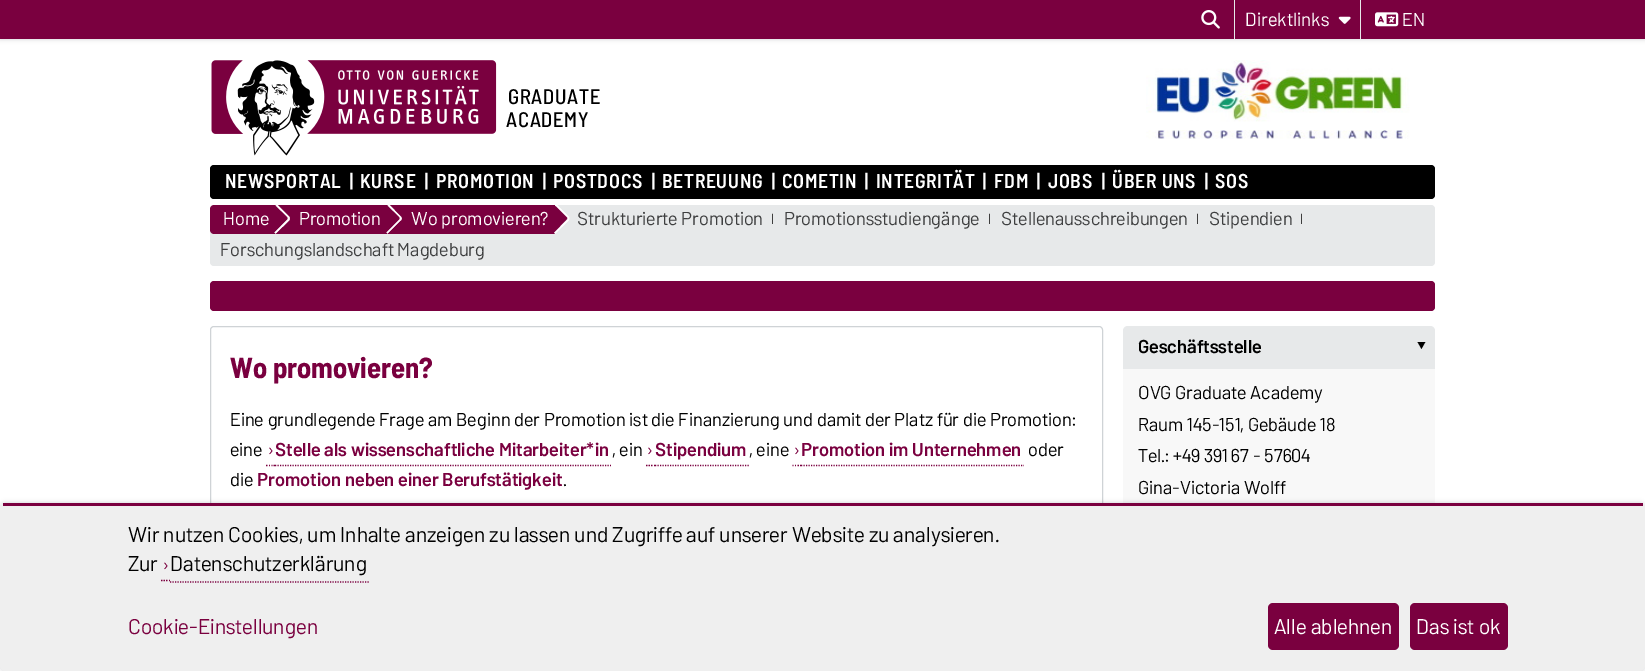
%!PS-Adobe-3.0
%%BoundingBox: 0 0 1645 671
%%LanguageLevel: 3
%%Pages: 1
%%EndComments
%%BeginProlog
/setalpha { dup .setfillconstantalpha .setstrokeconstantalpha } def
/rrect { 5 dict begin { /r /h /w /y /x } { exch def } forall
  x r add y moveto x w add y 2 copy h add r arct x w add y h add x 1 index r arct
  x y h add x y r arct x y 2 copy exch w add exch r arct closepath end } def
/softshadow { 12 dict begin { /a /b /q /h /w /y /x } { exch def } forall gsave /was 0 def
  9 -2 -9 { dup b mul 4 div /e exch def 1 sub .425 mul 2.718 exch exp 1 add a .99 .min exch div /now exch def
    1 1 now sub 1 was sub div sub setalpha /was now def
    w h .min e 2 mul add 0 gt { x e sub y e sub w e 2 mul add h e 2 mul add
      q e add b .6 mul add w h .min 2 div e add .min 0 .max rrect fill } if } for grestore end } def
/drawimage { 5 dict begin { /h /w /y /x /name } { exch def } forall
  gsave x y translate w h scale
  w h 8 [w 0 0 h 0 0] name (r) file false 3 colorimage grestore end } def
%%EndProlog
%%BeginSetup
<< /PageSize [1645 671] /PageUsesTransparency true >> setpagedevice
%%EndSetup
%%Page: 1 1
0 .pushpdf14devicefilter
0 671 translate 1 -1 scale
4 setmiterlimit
1 setgray
0 0 1645 671 rectfill
0.263 0.278 0.333 setrgbcolor
0 0 1645 39 0 2.5 0.27 softshadow
0.478 0 0.247 setrgbcolor
0 0 1645 39 rectfill
(images/1.raw) 1201 10 19 19 drawimage
0.906 0.914 0.918 setrgbcolor
1360 0 1 39 rectfill
1234 0 1 39 rectfill
(images/2.raw) 1338 16 13 8 drawimage
(images/3.raw) 1375 12 24 15 drawimage
(images/4.raw) 211 60 286 96 drawimage
(images/5.raw) 1146 60 264 79 drawimage
0 setgray
210 165 1225 34 4 rrect fill
0.906 0.914 0.918 setrgbcolor
210 205 1225 61 4 rrect fill
0.478 0 0.247 setrgbcolor
newpath 214 205 moveto 275 205 lineto 275 234 lineto 214 234 lineto 212 234 210 232 210 230 curveto 210 209 lineto 210 207 212 205 214 205 curveto closepath fill
275 205 280 29 rectfill
0.949 0.902 0.925 setrgbcolor
newpath 277 204.5 moveto 275.5 206 lineto 287 217 lineto 287.5 218 287.5 219 287 219.5 curveto 274.5 232.5 lineto 275.5 233.5 lineto 289 220.5 lineto 290 219.5 290 217.5 289 216.5 curveto closepath fill
0.9 setalpha
1 setgray
newpath 277 204.5 moveto 275.5 206 lineto 287 217 lineto 287.5 218 287.5 219 287 219.5 curveto 274.5 232.5 lineto 275.5 233.5 lineto 289 220.5 lineto 290 219.5 290 217.5 289 216.5 curveto closepath fill
1 setalpha
0.478 0 0.247 setrgbcolor
newpath 275.5 206 moveto 287 217 lineto 287.5 218 287.5 219 287 219.5 curveto 274 232.5 lineto 267 225.5 267 214.5 274 207.5 curveto closepath fill
0.949 0.902 0.925 setrgbcolor
newpath 389 204.5 moveto 387.5 206 lineto 399 217 lineto 399.5 218 399.5 219 399 219.5 curveto 386.5 232.5 lineto 387.5 233.5 lineto 400.5 220.5 lineto 402 219.5 402 217.5 400.5 216.5 curveto closepath fill
0.9 setalpha
1 setgray
newpath 389 204.5 moveto 387.5 206 lineto 399 217 lineto 399.5 218 399.5 219 399 219.5 curveto 386.5 232.5 lineto 387.5 233.5 lineto 400.5 220.5 lineto 402 219.5 402 217.5 400.5 216.5 curveto closepath fill
1 setalpha
0.478 0 0.247 setrgbcolor
newpath 387.5 206 moveto 399 217 lineto 399.5 218 399.5 219 399 219.5 curveto 386 232.5 lineto 379 225.5 379 214.5 386 207.5 curveto closepath fill
0.9 setalpha
1 setgray
newpath 556.5 204.5 moveto 555 206.5 lineto 555.5 206 lineto 566.5 217 lineto 567.5 218 567.5 219 566.5 219.5 curveto 554 232.5 lineto 555 233.5 lineto 568.5 220.5 lineto 569.5 219.5 569.5 217.5 568.5 216.5 curveto closepath fill
newpath 556.5 204.5 moveto 555 206.5 lineto 555.5 206 lineto 566.5 217 lineto 567.5 218 567.5 219 566.5 219.5 curveto 554 232.5 lineto 555 233.5 lineto 568.5 220.5 lineto 569.5 219.5 569.5 217.5 568.5 216.5 curveto closepath fill
1 setalpha
0.478 0 0.247 setrgbcolor
newpath 555.5 206 moveto 566.5 217 lineto 567.5 218 567.5 219 566.5 219.5 curveto 554 232.5 lineto 547 225.5 547 214.5 554 207.5 curveto closepath fill
210 281 1225 30 4 rrect fill
0.812 0.827 0.839 setrgbcolor
210.5 326.5 892 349 3.5 rrect stroke
0.478 0 0.247 setrgbcolor
1.2 setlinewidth
newpath 266 465.5 moveto 267.5 465.5 lineto 269 465.5 moveto 270 465.5 lineto 271.5 465.5 moveto 272.5 465.5 lineto 273.5 465.5 moveto 275 465.5 lineto stroke
[1.25 1.25] 0 setdash
newpath 275 465.5 moveto 611 465.5 lineto stroke
[] 0 setdash
newpath 646 465.5 moveto 647.5 465.5 lineto 648.5 465.5 moveto 650 465.5 lineto 651 465.5 moveto 652.5 465.5 lineto 654 465.5 moveto 655 465.5 lineto stroke
[1.25 1.25] 0 setdash
newpath 655 465.5 moveto 749 465.5 lineto stroke
[] 0 setdash
newpath 792.5 465.5 moveto 793.5 465.5 lineto 795 465.5 moveto 796 465.5 lineto 797.5 465.5 moveto 799 465.5 lineto 800 465.5 moveto 801 465.5 lineto stroke
[1.25 1.25] 0 setdash
newpath 801 465.5 moveto 1024 465.5 lineto stroke
0.906 0.914 0.918 setrgbcolor
newpath 1128 326 moveto 1430 326 lineto 1433 326 1435 328 1435 331 curveto 1435 369 lineto 1123 369 lineto 1123 331 lineto 1123 328 1125 326 1128 326 curveto closepath fill
0.973 setgray
1123 369 312 134 rectfill
0.263 0.278 0.333 setrgbcolor
0 503 1645 168 5 2.5 0.27 softshadow
0.937 setgray
0 503 1645 168 5 rrect fill
0.478 0 0.247 setrgbcolor
3 503 1640 3 rectfill
[] 0 setdash
newpath 161 580.5 moveto 162.5 580.5 lineto 163.5 580.5 moveto 165 580.5 lineto 166 580.5 moveto 167.5 580.5 lineto 169 580.5 moveto 170 580.5 lineto stroke
[1.25 1.25] 0 setdash
newpath 170 582 moveto 370 582 lineto stroke
1268 603 131 47 5 rrect fill
1410 603 98 47 5 rrect fill
/Barlow-Regular [19 0 0 -19 0 0] selectfont
1 setgray
1245 26 moveto (Direktlinks) show
/Barlow-Regular [18.6 0 0 -18.6 0 0] selectfont
1402 26 moveto (EN) show
/BarlowSemiCondensed-Medium [21 0 0 -21 0 0] selectfont
0 setgray
508 104 moveto 0.75 0 (GRADUATE) ashow
506 127 moveto 0.75 0 (ACADEMY) ashow
/BarlowSemiCondensed-SemiBold [20 0 0 -20 0 0] selectfont
1 setgray
225 188 moveto 0.75 0 (NEWSPORTAL) ashow
349 188 moveto 0.75 0 (|) ashow
360 188 moveto 0.75 0 (KURSE) ashow
424 188 moveto 0.75 0 (|) ashow
436 188 moveto 0.75 0 (PROMOTION) ashow
542 188 moveto 0.75 0 (|) ashow
553 188 moveto 0.75 0 (POSTDOCS) ashow
651 188 moveto 0.75 0 (|) ashow
662 188 moveto 0.75 0 (BETREUUNG) ashow
771 188 moveto 0.75 0 (|) ashow
782 188 moveto 0.75 0 (COMETIN) ashow
864 188 moveto 0.75 0 (|) ashow
876 188 moveto 0.75 0 (INTEGRITÄT) ashow
982 188 moveto 0.75 0 (|) ashow
994 188 moveto 0.75 0 (FDM) ashow
1036 188 moveto 0.75 0 (|) ashow
1048 188 moveto 0.75 0 (JOBS) ashow
1101 188 moveto 0.75 0 (|) ashow
1112 188 moveto 0.75 0 (ÜBER UNS) ashow
1204 188 moveto 0.75 0 (|) ashow
1215 188 moveto 0.75 0 (SOS) ashow
/Barlow-Regular [18.6 0 0 -18.6 0 0] selectfont
0.243 0.247 0.251 setrgbcolor
577 225 moveto (Strukturierte Promotion) show
/Barlow-Regular [12 0 0 -12 0 0] selectfont
0 setgray
771 223 moveto (|) show
/Barlow-Regular [18.6 0 0 -18.6 0 0] selectfont
0.243 0.247 0.251 setrgbcolor
784 225 moveto (Promotionsstudiengänge) show
/Barlow-Regular [12 0 0 -12 0 0] selectfont
0 setgray
988 223 moveto (|) show
/Barlow-Regular [18.6 0 0 -18.6 0 0] selectfont
0.243 0.247 0.251 setrgbcolor
1001 225 moveto (Stellenausschreibungen) show
/Barlow-Regular [12 0 0 -12 0 0] selectfont
0 setgray
1196 223 moveto (|) show
/Barlow-Regular [18.6 0 0 -18.6 0 0] selectfont
0.243 0.247 0.251 setrgbcolor
1209 225 moveto (Stipendien) show
/Barlow-Regular [12 0 0 -12 0 0] selectfont
0 setgray
1300 223 moveto (|) show
/Barlow-Regular [18.6 0 0 -18.6 0 0] selectfont
0.243 0.247 0.251 setrgbcolor
220 256 moveto (Forschungslandschaft Magdeburg) show
1 setgray
223 225 moveto (Home) show
299 225 moveto (Promotion) show
411 225 moveto (Wo promovieren?) show
/BarlowSemiCondensed-Bold [29 0 0 -29 0 0] selectfont
0.478 0 0.247 setrgbcolor
230 378 moveto (Wo promovieren?) show
/Barlow-Regular [18.6 0 0 -18.6 0 0] selectfont
0 setgray
230 426 moveto (Eine grundlegende Frage am Beginn der Promotion ist die Finanzierung und damit der Platz für die Promotion:) show
230 456 moveto (eine) show
/Barlow-Regular [18 0 0 -18 0 0] selectfont
0.478 0 0.247 setrgbcolor
268 456 moveto (›) show
/Barlow-SemiBold [18.6 0 0 -18.6 0 0] selectfont
275 456 moveto (Stelle als wissenschaftliche Mitarbeiter*in) show
/Barlow-Regular [18.6 0 0 -18.6 0 0] selectfont
0 setgray
612 456 moveto (, ein) show
/Barlow-Regular [18 0 0 -18 0 0] selectfont
0.478 0 0.247 setrgbcolor
647 456 moveto (›) show
/Barlow-SemiBold [18.6 0 0 -18.6 0 0] selectfont
655 456 moveto (Stipendium) show
/Barlow-Regular [18.6 0 0 -18.6 0 0] selectfont
0 setgray
749 456 moveto (, eine) show
/Barlow-Regular [18 0 0 -18 0 0] selectfont
0.478 0 0.247 setrgbcolor
794 456 moveto (›) show
/Barlow-SemiBold [18.6 0 0 -18.6 0 0] selectfont
801 456 moveto (Promotion im Unternehmen) show
/Barlow-Regular [18.6 0 0 -18.6 0 0] selectfont
0 setgray
1028 456 moveto (oder) show
230 486 moveto (die) show
/Barlow-SemiBold [18.6 0 0 -18.6 0 0] selectfont
0.478 0 0.247 setrgbcolor
257 486 moveto (Promotion neben einer Berufstätigkeit) show
/Barlow-Regular [18.6 0 0 -18.6 0 0] selectfont
0 setgray
563 486 moveto (.) show
/Barlow-SemiBold [18.6 0 0 -18.6 0 0] selectfont
1138 353 moveto (Geschäftsstelle) show
/NotoSans-Regular [28 0 0 -28 0 0] selectfont
gsave 1411 340 translate 90 rotate 0 0 moveto (‣) show grestore
/Barlow-Regular [18.6 0 0 -18.6 0 0] selectfont
1138 399 moveto (OVG Graduate Academy) show
1138 431 moveto (Raum 145-151, Gebäude 18) show
1138 462 moveto (Tel.: +49 391 67 - 57604) show
1138 494 moveto (Gina-Victoria Wolff) show
/Barlow-Regular [21.25 0 0 -21.25 0 0] selectfont
128 542 moveto (Wir nutzen Cookies, um Inhalte anzeigen zu lassen und Zugriffe auf unserer Website zu analysieren.) show
128 571 moveto (Zur) show
/Barlow-Regular [18 0 0 -18 0 0] selectfont
0.478 0 0.247 setrgbcolor
163 571 moveto (›) show
/Barlow-Regular [21.25 0 0 -21.25 0 0] selectfont
0 setgray
170 571 moveto (Datenschutzerklärung) show
0.478 0 0.247 setrgbcolor
128 634 moveto (Cookie-Einstellungen) show
1 setgray
1274 634 moveto (Alle ablehnen) show
1416 634 moveto (Das ist ok) show
.poppdf14devicefilter showpage
%%EOF
